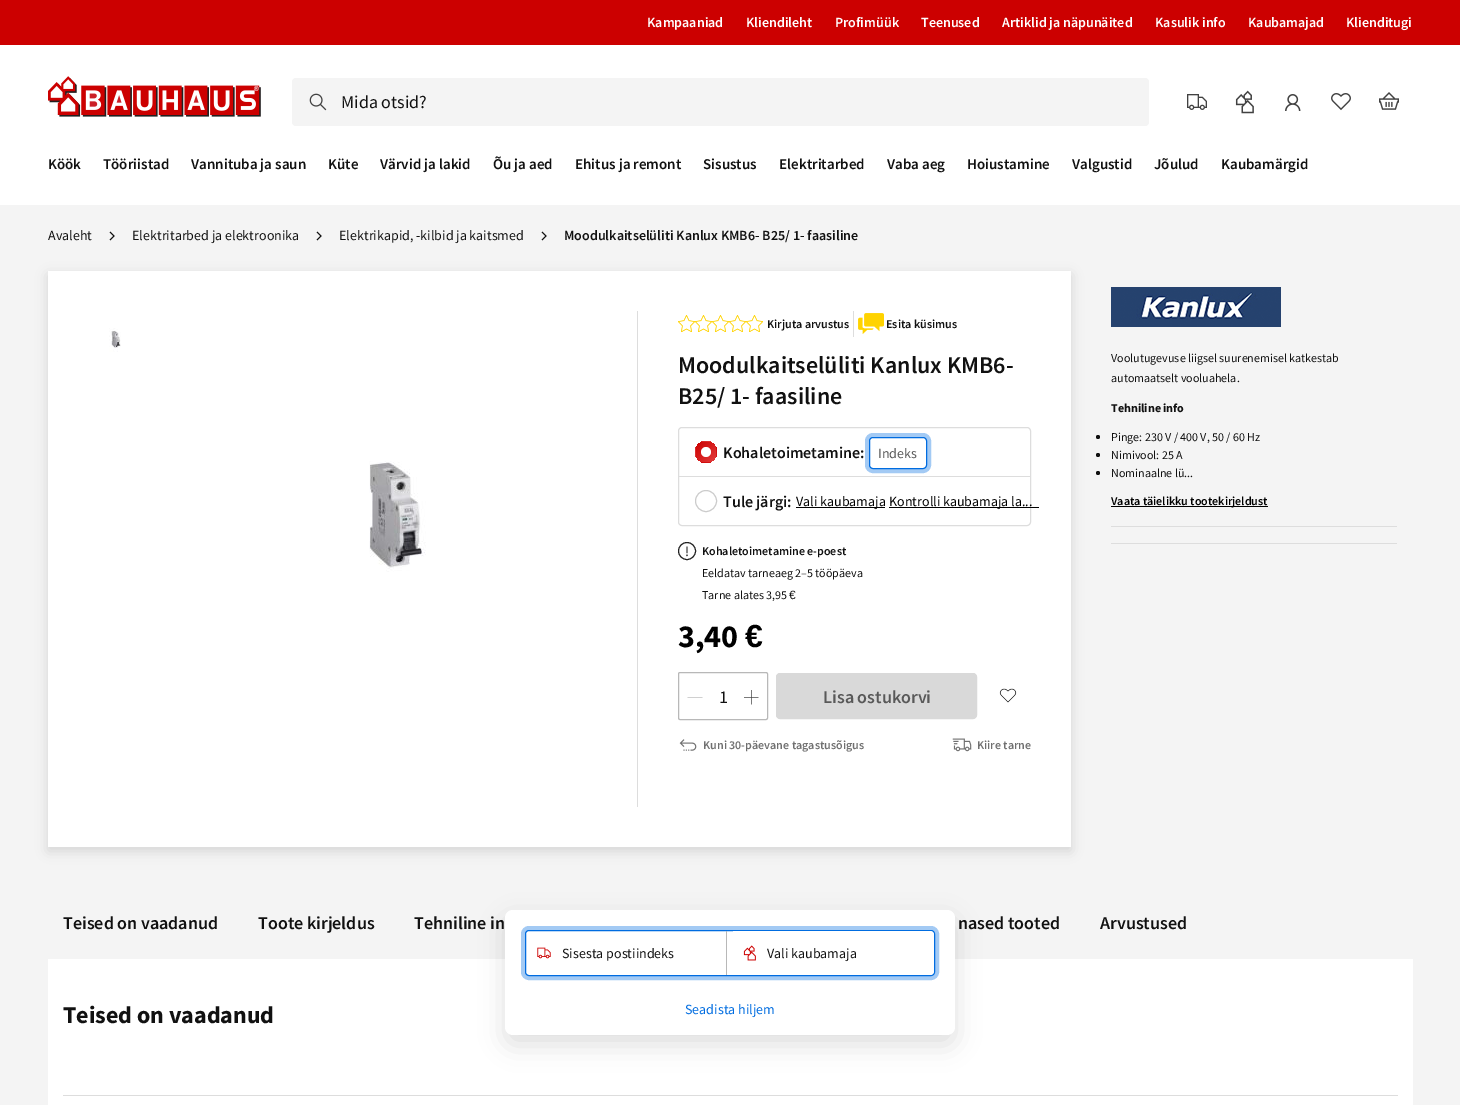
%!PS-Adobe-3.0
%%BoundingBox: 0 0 1460 1105
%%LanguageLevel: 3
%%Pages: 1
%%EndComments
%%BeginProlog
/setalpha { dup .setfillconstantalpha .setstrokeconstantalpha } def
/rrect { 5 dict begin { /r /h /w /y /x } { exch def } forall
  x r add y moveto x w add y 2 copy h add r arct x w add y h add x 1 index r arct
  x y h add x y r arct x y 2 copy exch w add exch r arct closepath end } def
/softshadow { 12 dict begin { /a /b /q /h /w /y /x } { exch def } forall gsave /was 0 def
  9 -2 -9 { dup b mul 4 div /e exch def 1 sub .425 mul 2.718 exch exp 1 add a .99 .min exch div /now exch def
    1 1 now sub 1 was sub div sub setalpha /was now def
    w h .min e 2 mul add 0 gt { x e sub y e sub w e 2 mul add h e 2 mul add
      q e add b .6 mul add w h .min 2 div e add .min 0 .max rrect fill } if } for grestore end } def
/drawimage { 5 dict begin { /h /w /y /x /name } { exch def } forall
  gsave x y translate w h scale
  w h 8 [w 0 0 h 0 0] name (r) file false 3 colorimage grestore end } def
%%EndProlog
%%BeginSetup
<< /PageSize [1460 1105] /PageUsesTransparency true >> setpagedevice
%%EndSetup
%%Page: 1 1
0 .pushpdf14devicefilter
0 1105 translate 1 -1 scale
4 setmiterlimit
0.957 setgray
0 0 1460 1105 rectfill
1 setgray
0 45 1460 160 rectfill
0.8 0 0 setrgbcolor
0 0 1460 45 rectfill
(images/1.raw) 48 76 213 41 drawimage
0.957 setgray
292 78 857 48 4 rrect fill
(images/2.raw) 309 93 18 18 drawimage
(images/3.raw) 1187 94 20 16 drawimage
(images/4.raw) 1235 90 19 24 drawimage
(images/5.raw) 1285 94 16 17 drawimage
(images/6.raw) 1331 93 20 18 drawimage
(images/7.raw) 1379 92 20 18 drawimage
0.067 setgray
0.8 setlinewidth
newpath 110 240 moveto 114 236 lineto 110 232 lineto stroke
newpath 317 240 moveto 321 236 lineto 317 232 lineto stroke
newpath 542 240 moveto 546 236 lineto 542 232 lineto stroke
0 setgray
48 275 1023 576 0 6 0.12 softshadow
1 setgray
48 271 1023 576 rectfill
0.867 setgray
637 311 1 496 rectfill
(images/8.raw) 109 328 12 24 drawimage
(images/9.raw) 369 461 57 111 drawimage
(images/10.raw) 678 315 85 17 drawimage
(images/11.raw) 678 315 85 17 drawimage
853 311 1 26 rectfill
(images/12.raw) 858 313 26 21 drawimage
1 setlinewidth
678.5 427.5 352 98 3.5 rrect stroke
679 476 351 1 rectfill
gsave
695 441 22 22 11 rrect clip newpath
gsave newpath 696 441 moveto 716 441 lineto 716 442 lineto 696 442 lineto closepath clip newpath
<< /ShadingType 2 /ColorSpace /DeviceRGB /Coords [696 422 716 442] /Extend [true true] /Function << /FunctionType 2 /Domain [0 1] /C0 [0.8 0 0] /C1 [0.886 0.239 0.239] /N 1 >> >> shfill grestore
gsave newpath 695 442 moveto 696 442 lineto 696 462 lineto 695 462 lineto closepath clip newpath
<< /ShadingType 2 /ColorSpace /DeviceRGB /Coords [676 442 696 462] /Extend [true true] /Function << /FunctionType 2 /Domain [0 1] /C0 [0.8 0 0] /C1 [0.886 0.239 0.239] /N 1 >> >> shfill grestore
gsave newpath 696 442 moveto 716 442 lineto 716 462 lineto 696 462 lineto closepath clip newpath
<< /ShadingType 2 /ColorSpace /DeviceRGB /Coords [696 442 716 462] /Extend [true true] /Function << /FunctionType 2 /Domain [0 1] /C0 [0.8 0 0] /C1 [0.886 0.239 0.239] /N 1 >> >> shfill grestore
gsave newpath 716 442 moveto 717 442 lineto 717 462 lineto 716 462 lineto closepath clip newpath
<< /ShadingType 2 /ColorSpace /DeviceRGB /Coords [716 442 736 462] /Extend [true true] /Function << /FunctionType 2 /Domain [0 1] /C0 [0.8 0 0] /C1 [0.886 0.239 0.239] /N 1 >> >> shfill grestore
gsave newpath 696 462 moveto 716 462 lineto 716 463 lineto 696 463 lineto closepath clip newpath
<< /ShadingType 2 /ColorSpace /DeviceRGB /Coords [696 462 716 482] /Extend [true true] /Function << /FunctionType 2 /Domain [0 1] /C0 [0.8 0 0] /C1 [0.886 0.239 0.239] /N 1 >> >> shfill grestore
grestore
1 setgray
newpath 706 452 5 0 360 arc closepath fill
0.639 0.792 0.957 setrgbcolor
4 setlinewidth
867 435 62 36 6 rrect stroke
0 0.424 0.878 setrgbcolor
1 setlinewidth
869.5 437.5 57 31 3.5 rrect stroke
0.8 setgray
newpath 706 501 10.5 0 360 arc closepath stroke
0 setgray
796 507 89 1 rectfill
889 507 150 1 rectfill
0.133 setgray
newpath 687 551 8.5 0 360 arc closepath stroke
0.722 setgray
678.5 672.5 89 47 1.5 rrect stroke
0.816 setgray
0.7 setlinewidth
newpath 687.5 697.5 moveto 702.5 697.5 lineto closepath stroke
(images/13.raw) 744 690 15 15 drawimage
0.851 setgray
776.5 673.5 200 45 3.5 rrect gsave fill grestore
1 setlinewidth
stroke
(images/14.raw) 999 688 18 15 drawimage
(images/15.raw) 679 739 18 12 drawimage
(images/16.raw) 952 738 20 14 drawimage
0.867 setgray
1111 526 286 1 rectfill
(images/17.raw) 1111 287 170 40 drawimage
0.067 setgray
newpath 1098 437 2 0 360 arc closepath fill
newpath 1098 455 2 0 360 arc closepath fill
newpath 1098 473 2 0 360 arc closepath fill
0 setgray
1111 506 157 1 rectfill
0.867 setgray
1111 543 286 1 rectfill
1 setgray
48 959 1365 146 rectfill
0.867 setgray
63 1095 1335 1 rectfill
0 setgray
505 920 450 125 8 12.5 0.12 softshadow
1 setgray
505 910 450 125 8 rrect fill
0.639 0.792 0.957 setrgbcolor
4 setlinewidth
523 928 414 50 6 rrect stroke
0 0.424 0.878 setrgbcolor
1 setlinewidth
525.5 930.5 409 45 3.5 rrect stroke
0.722 setgray
726 931 1 44 rectfill
(images/18.raw) 537 947 14 12 drawimage
1 setgray
newpath 733 931 moveto 930 931 lineto 932 931 934 933 934 935 curveto 934 971 lineto 934 973 932 975 930 975 curveto 733 975 lineto closepath fill
(images/19.raw) 743 945 13 16 drawimage
/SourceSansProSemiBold-SemiBold [14 0 0 -14 0 0] selectfont
647 27 moveto (Kampaaniad) show
746 27 moveto (Kliendileht) show
835 27 moveto (Profimüük) show
921 27 moveto (Teenused) show
1002 27 moveto (Artiklid ja näpunäited) show
1155 27 moveto (Kasulik info) show
1248 27 moveto (Kaubamajad) show
1346 27 moveto (Klienditugi) show
/SourceSansPro-Regular [18 0 0 -18 0 0] selectfont
0.067 setgray
341 108 moveto (Mida otsid?) show
/SourceSansProSemiBold-SemiBold [15 0 0 -15 0 0] selectfont
48 169 moveto (Köök) show
103 169 moveto (Tööriistad) show
191 169 moveto (Vannituba ja saun) show
328 169 moveto (Küte) show
380 169 moveto (Värvid ja lakid) show
493 169 moveto (Õu ja aed) show
575 169 moveto (Ehitus ja remont) show
703 169 moveto (Sisustus) show
779 169 moveto (Elektritarbed) show
887 169 moveto (Vaba aeg) show
967 169 moveto (Hoiustamine) show
1072 169 moveto (Valgustid) show
1154 169 moveto (Jõulud) show
1221 169 moveto (Kaubamärgid) show
/SourceSansPro-Regular [14 0 0 -14 0 0] selectfont
48 240 moveto (Avaleht) show
132 240 moveto (Elektritarbed ja elektroonika) show
339 240 moveto (Elektrikapid, -kilbid ja kaitsmed) show
/SourceSansProSemiBold-SemiBold [14 0 0 -14 0 0] selectfont
564 240 moveto (Moodulkaitselüliti Kanlux KMB6- B25/ 1- faasiline) show
/SourceSansProSemiBold-SemiBold [12 0 0 -12 0 0] selectfont
767 328 moveto (Kirjuta arvustus) show
886 328 moveto (Esita küsimus) show
/SourceSansProSemiBold-SemiBold [24 0 0 -24 0 0] selectfont
678 373 moveto (Moodulkaitselüliti Kanlux KMB6-) show
678 404 moveto (B25/ 1- faasiline) show
/SourceSansProSemiBold-SemiBold [16 0 0 -16 0 0] selectfont
723 458 moveto (Kohaletoimetamine:) show
/SourceSansPro-Regular [14 0 0 -14 0 0] selectfont
0.349 setgray
878 458 moveto (Indeks) show
/SourceSansProSemiBold-SemiBold [16 0 0 -16 0 0] selectfont
0.067 setgray
723 507 moveto (Tule järgi:) show
/SourceSansPro-Regular [14 0 0 -14 0 0] selectfont
0 setgray
796 506 moveto (Vali kaubamaja) show
889 506 moveto (Kontrolli kaubamaja la...) show
0.133 setgray
685 556 moveto (!) show
/SourceSansProSemiBold-SemiBold [12 0 0 -12 0 0] selectfont
0.067 setgray
702 555 moveto (Kohaletoimetamine e-poest) show
/SourceSansPro-Regular [12 0 0 -12 0 0] selectfont
702 577 moveto (Eeldatav tarneaeg 2–5 tööpäeva) show
702 599 moveto (Tarne alates 3,95) show
/LiberationSans-Regular [12 0 0 -12 0 0] selectfont
789 599 moveto (€) show
/SourceSansPro-Bold [32 0 0 -32 0 0] selectfont
0 setgray
678 647 moveto (3,40) show
/LiberationSans-Bold [32 0 0 -32 0 0] selectfont
745 647 moveto (€) show
/SourceSansPro-Regular [18 0 0 -18 0 0] selectfont
0.067 setgray
719 703 moveto (1) show
/SourceSansProSemiBold-SemiBold [18 0 0 -18 0 0] selectfont
0.349 setgray
823 703 moveto (Lisa ostukorvi) show
/SourceSansProSemiBold-SemiBold [12 0 0 -12 0 0] selectfont
0.439 setgray
703 749 moveto (Kuni 30-päevane tagastusõigus) show
977 749 moveto (Kiire tarne) show
/SourceSansPro-Regular [12 0 0 -12 0 0] selectfont
0.067 setgray
1111 362 moveto (Voolutugevuse liigsel suurenemisel katkestab) show
1111 382 moveto (automaatselt vooluahela.) show
/SourceSansPro-Bold [12 0 0 -12 0 0] selectfont
1111 412 moveto (Tehniline info) show
/SourceSansPro-Regular [12 0 0 -12 0 0] selectfont
1111 441 moveto (Pinge: 230 V / 400 V, 50 / 60 Hz) show
1111 459 moveto (Nimivool: 25 A) show
1111 477 moveto (Nominaalne lü...) show
/SourceSansProSemiBold-SemiBold [12 0 0 -12 0 0] selectfont
0 setgray
1111 505 moveto (Vaata täielikku tootekirjeldust) show
/SourceSansProSemiBold-SemiBold [18 0 0 -18 0 0] selectfont
0.067 setgray
63 929 moveto (Teised on vaadanud) show
258 929 moveto (Toote kirjeldus) show
414 929 moveto (Tehniline in) show
958 929 moveto (nased tooted) show
1100 929 moveto (Arvustused) show
/SourceSansPro-Bold [24 0 0 -24 0 0] selectfont
63 1023 moveto (Teised on vaadanud) show
/SourceSansPro-Regular [14 0 0 -14 0 0] selectfont
562 958 moveto (Sisesta postiindeks) show
767 958 moveto (Vali kaubamaja) show
0 0.424 0.878 setrgbcolor
685 1014 moveto (Seadista hiljem) show
.poppdf14devicefilter showpage
%%EOF
